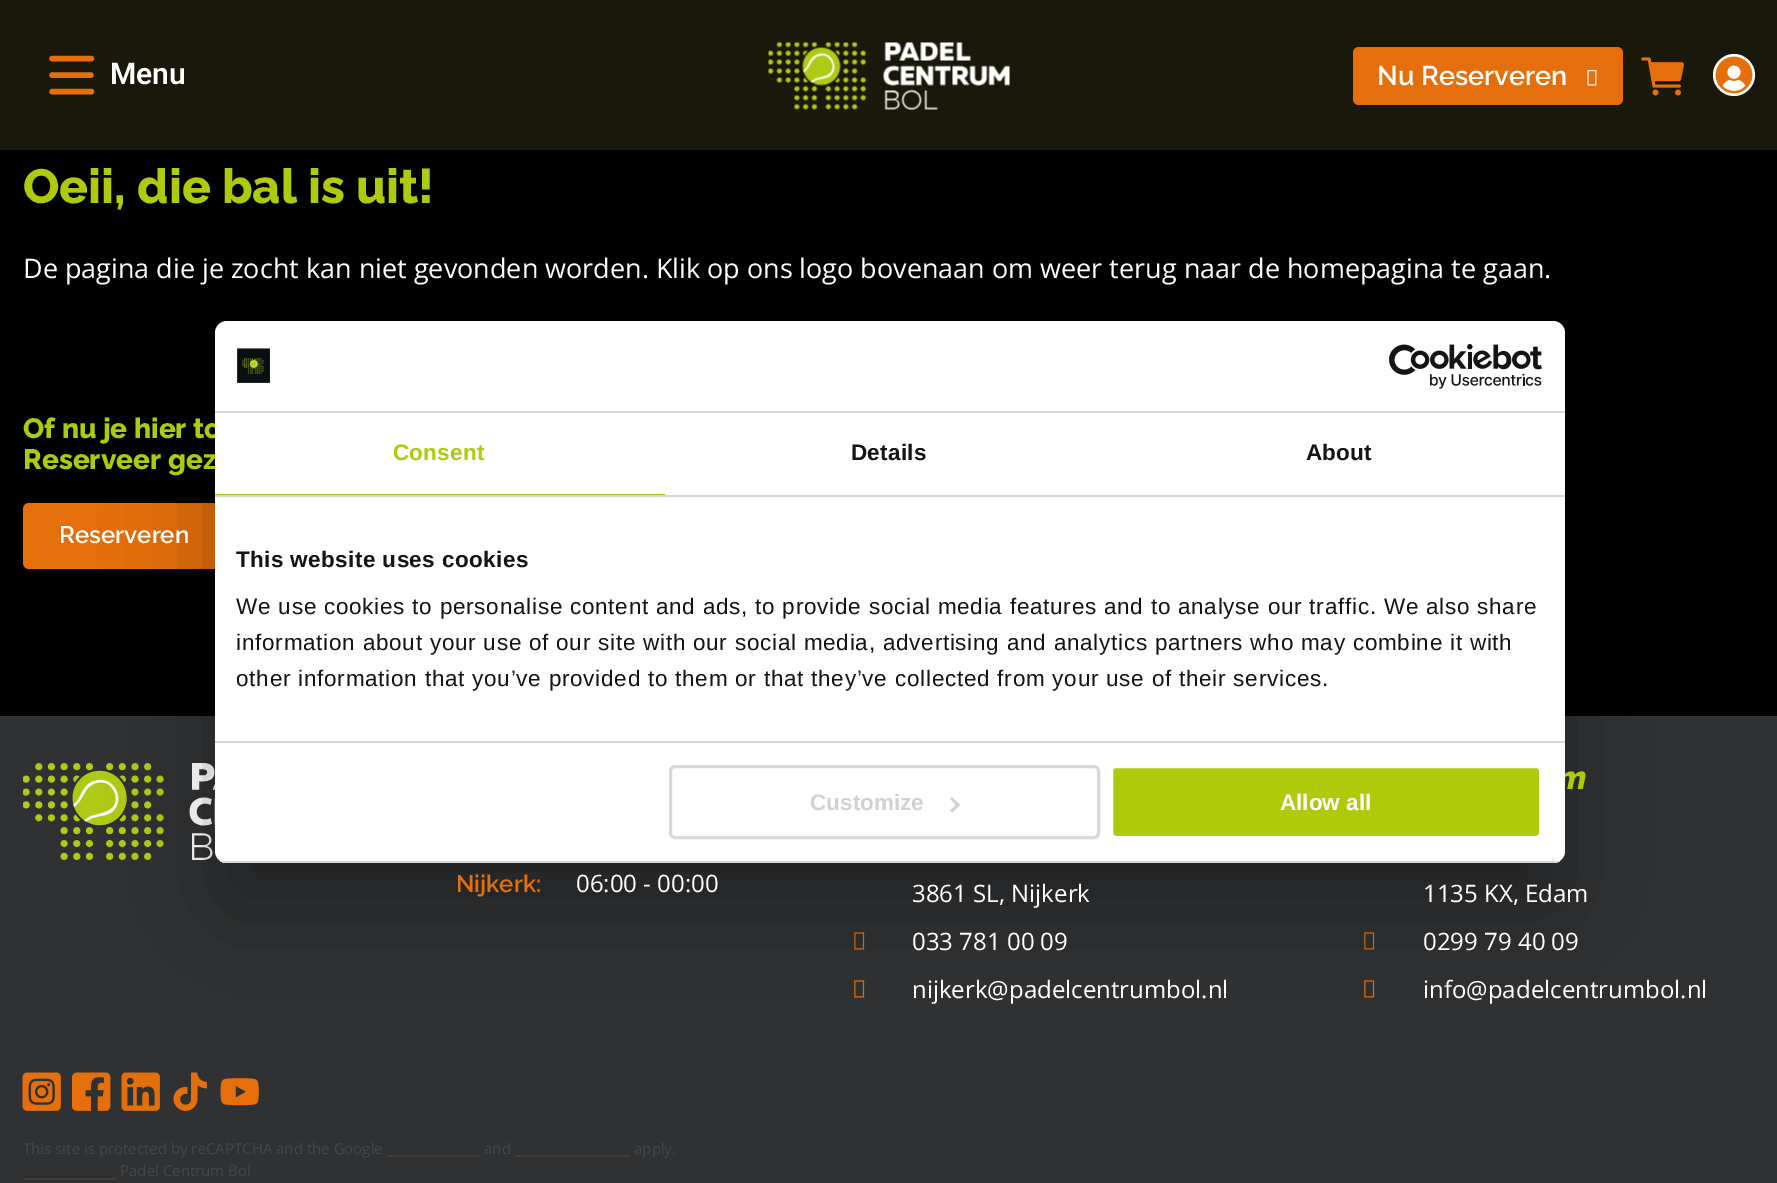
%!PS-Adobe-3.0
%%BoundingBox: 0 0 1777 1183
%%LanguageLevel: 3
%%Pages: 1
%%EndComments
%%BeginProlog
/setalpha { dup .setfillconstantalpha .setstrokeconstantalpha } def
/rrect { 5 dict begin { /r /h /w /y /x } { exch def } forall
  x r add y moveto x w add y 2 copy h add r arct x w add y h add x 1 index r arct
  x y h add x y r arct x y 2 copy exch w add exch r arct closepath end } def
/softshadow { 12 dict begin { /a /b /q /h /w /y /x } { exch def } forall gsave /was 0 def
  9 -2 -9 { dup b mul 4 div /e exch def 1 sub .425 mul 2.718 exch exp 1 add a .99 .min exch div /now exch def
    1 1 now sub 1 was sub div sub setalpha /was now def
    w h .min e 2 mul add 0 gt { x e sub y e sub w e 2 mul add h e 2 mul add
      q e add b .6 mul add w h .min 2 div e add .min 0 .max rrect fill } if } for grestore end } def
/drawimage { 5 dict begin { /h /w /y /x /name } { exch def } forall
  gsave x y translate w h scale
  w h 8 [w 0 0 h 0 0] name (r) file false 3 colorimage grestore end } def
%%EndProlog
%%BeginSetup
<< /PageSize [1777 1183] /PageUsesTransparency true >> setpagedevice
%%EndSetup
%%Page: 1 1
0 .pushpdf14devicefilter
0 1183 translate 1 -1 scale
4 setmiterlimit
0 setgray
0 0 1777 1183 rectfill
0.098 0.094 0.039 setrgbcolor
0 0 1777 150 rectfill
0.898 0.435 0.039 setrgbcolor
5.4 setlinewidth
1 setlinecap
newpath 52 58.5 moveto 91.5 58.5 lineto 91 75 moveto 52 75 lineto 52 91.5 moveto 91.5 91.5 lineto stroke
(images/1.raw) 768 42 242 68 drawimage
1353 47 270 58 6 rrect fill
(images/2.raw) 1587 70 10 16 drawimage
(images/3.raw) 1641 57 43 39 drawimage
1 setgray
newpath 1734 75 21 0 360 arc closepath fill
(images/4.raw) 1715 56 38 38 drawimage
0.898 0.435 0.039 setrgbcolor
23 503 202 66 6 rrect fill
0.188 0.192 0.196 setrgbcolor
0 716 1777 467 rectfill
(images/5.raw) 23 763 192 97 drawimage
(images/6.raw) 854 932 11 18 drawimage
(images/6.raw) 854 980 11 18 drawimage
(images/6.raw) 1364 932 11 18 drawimage
(images/6.raw) 1364 980 11 18 drawimage
(images/7.raw) 22 1072 39 39 drawimage
(images/8.raw) 72 1072 39 39 drawimage
(images/9.raw) 121 1072 39 39 drawimage
(images/10.raw) 173 1072 34 39 drawimage
(images/11.raw) 220 1078 39 28 drawimage
0.267 0.231 0.2 setrgbcolor
387 1155 93 2 rectfill
515 1155 115 2 rectfill
23 1178 93 2 rectfill
0 setgray
215 369 1350 542 12 51 0.3 softshadow
/Roboto-SemiBold [30 0 0 -30 0 0] selectfont
1 setgray
110 84 moveto (Menu) show
/Raleway-SemiBold [27 0 0 -27 0 0] selectfont
1377 85 moveto (Nu Reserveren) show
/Raleway-ExtraBold [48 0 0 -48 0 0] selectfont
0.686 0.792 0.043 setrgbcolor
23 203 moveto (Oeii, die bal is uit!) show
/OpenSans-Regular [27 0 0 -27 0 0] selectfont
1 setgray
23 278 moveto (De pagina die je zocht kan niet gevonden worden. Klik op ons logo bovenaan om weer terug naar de homepagina te gaan.) show
/Raleway-ExtraBold [28 0 0 -28 0 0] selectfont
0.686 0.792 0.043 setrgbcolor
23 438 moveto (Of nu je hier to) show
23 469 moveto (Reserveer gez) show
/Raleway-SemiBold [24 0 0 -24 0 0] selectfont
1 setgray
59 543 moveto (Reserveren) show
0.898 0.435 0.039 setrgbcolor
456 892 moveto (Nijkerk:) show
/OpenSans-Regular [24 0 0 -24 0 0] selectfont
1 setgray
576 892 moveto (06:00 - 00:00) show
912 902 moveto (3861 SL, Nijkerk) show
912 950 moveto (033 781 00 09) show
912 998 moveto (nijkerk@padelcentrumbol.nl) show
/Raleway-ExtraBoldItalic [33 0 0 -33 0 0] selectfont
0.686 0.792 0.043 setrgbcolor
1557 789 moveto (m) show
/OpenSans-Regular [24 0 0 -24 0 0] selectfont
1 setgray
1423 902 moveto (1135 KX, Edam) show
1423 950 moveto (0299 79 40 09) show
1423 998 moveto (info@padelcentrumbol.nl) show
/OpenSans-Regular [15 0 0 -15 0 0] selectfont
0.271 0.275 0.278 setrgbcolor
23 1154 moveto (This site is protected by reCAPTCHA and the Google) show
484 1154 moveto (and) show
634 1154 moveto (apply.) show
120 1176 moveto (Padel Centrum Bol) show
1 setgray
215 321 1350 542 12 rrect fill
0.839 setgray
215 411 1350 2 rectfill
(images/12.raw) 237 348 33 35 drawimage
(images/13.raw) 1389 344 153 45 drawimage
215 495 1350 2 rectfill
0.686 0.792 0.043 setrgbcolor
215 494 450 1 rectfill
/LiberationSans-Bold [22.5 0 0 -22.5 0 0] selectfont
393 460 moveto 0.25 0 (Consent) ashow
0.078 setgray
851 460 moveto 0.25 0 (Details) ashow
1306 460 moveto 0.25 0 (About) ashow
0.839 setgray
215 741 1350 2 rectfill
0.078 setgray
236 567 moveto 0.4 0 (This website uses cookies) ashow
/LiberationSans-Regular [22.5 0 0 -22.5 0 0] selectfont
236 614 moveto 0.75 0 (We use cookies to personalise content and ads, to provide social media features and to analyse our traffic. We also share) ashow
236 650 moveto 0.75 0 (information about your use of our site with our social media, advertising and analytics partners who may combine it with) ashow
236 686 moveto 0.75 0 (other information that you’ve provided to them or that they’ve collected from your use of their services.) ashow
gsave
215 321 1350 542 12 rrect clip newpath
0.839 setgray
215 861 1350 2 rectfill
grestore
0.851 setgray
3 setlinewidth
0 setlinecap
670.5 766.5 428 71 4.5 rrect stroke
/LiberationSans-Bold [22.5 0 0 -22.5 0 0] selectfont
0.82 setgray
810 810 moveto (Customize) show
newpath 952 797 moveto 960 805 lineto 958 807 lineto 950 799 lineto closepath fill
newpath 958 802.5 moveto 960 805 lineto 952 812.5 lineto 950 810.5 lineto closepath fill
0.686 0.792 0.043 setrgbcolor
1111.5 766.5 429 71 4.5 rrect gsave fill grestore
1 setgray
stroke
1280 810 moveto (Allow all) show
.poppdf14devicefilter showpage
%%EOF
